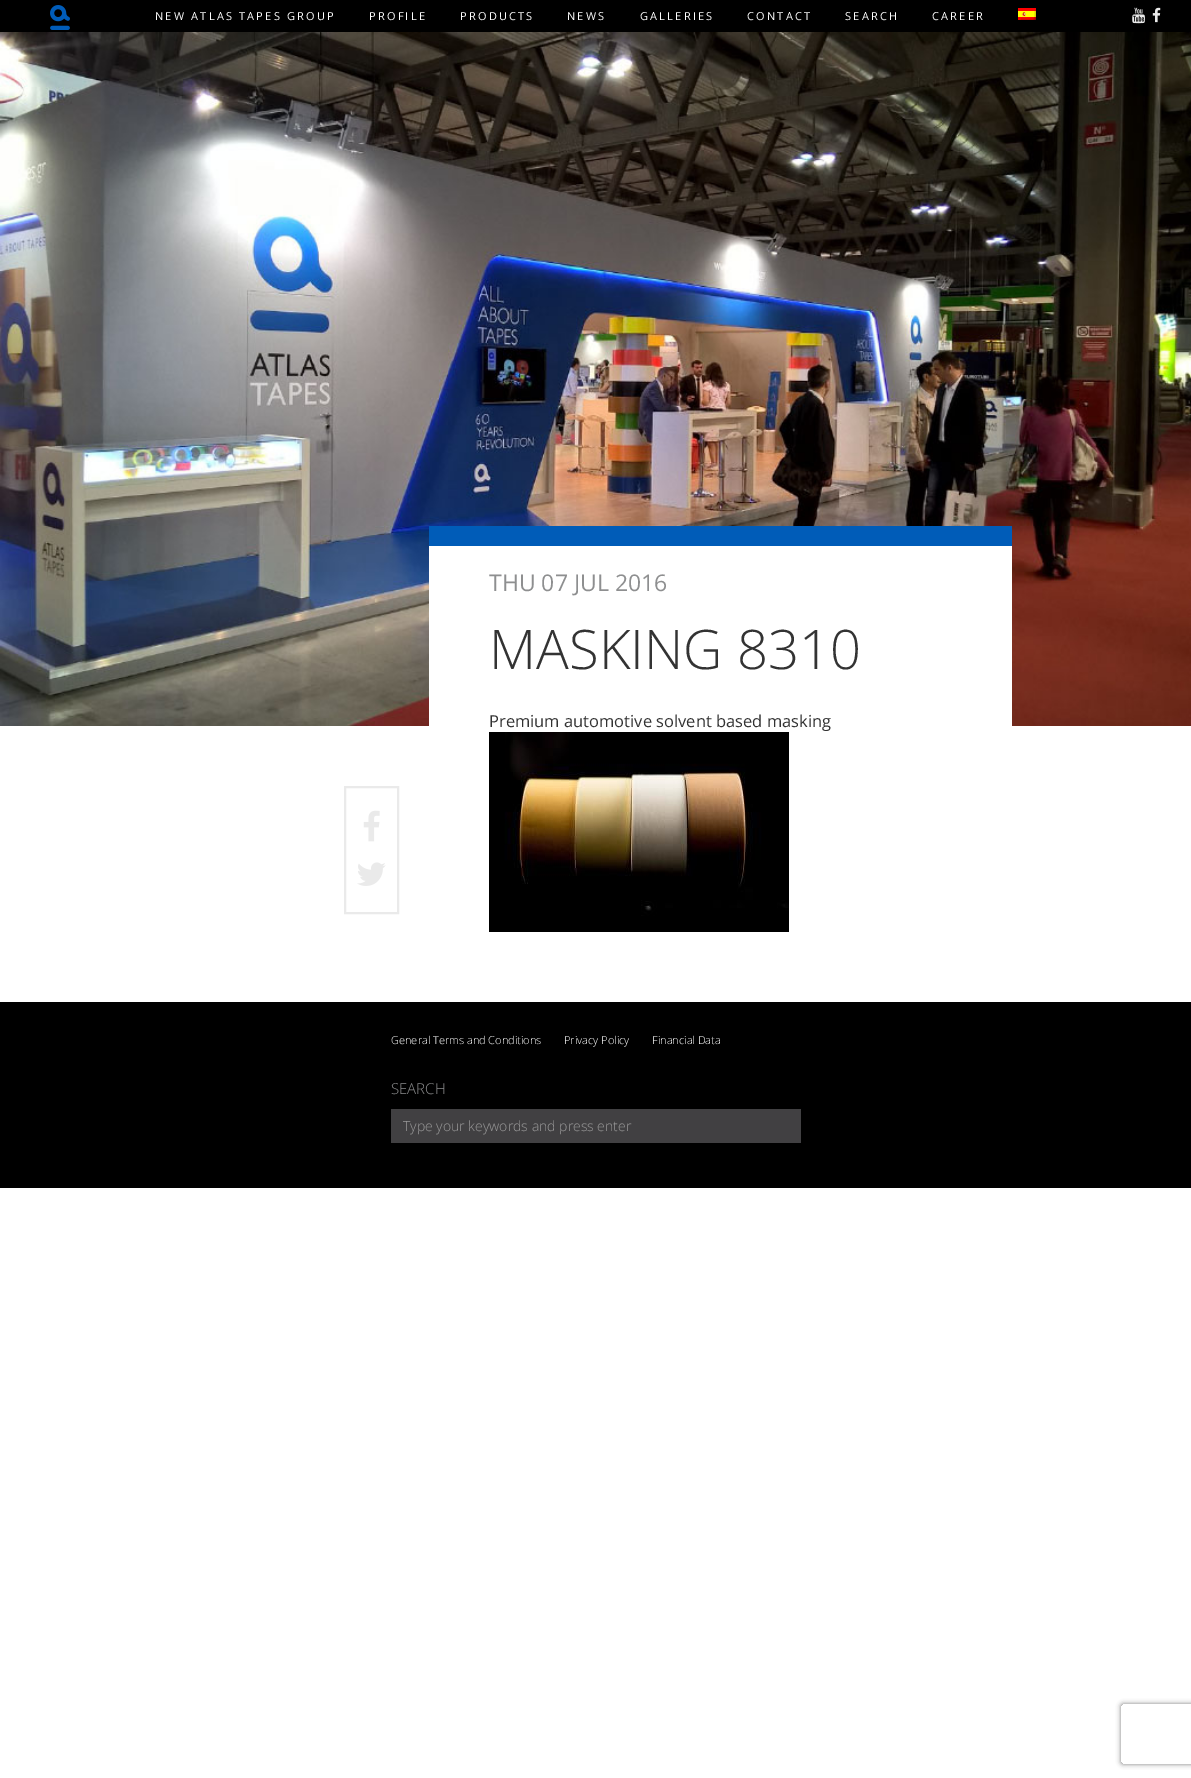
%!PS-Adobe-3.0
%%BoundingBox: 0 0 1191 1778
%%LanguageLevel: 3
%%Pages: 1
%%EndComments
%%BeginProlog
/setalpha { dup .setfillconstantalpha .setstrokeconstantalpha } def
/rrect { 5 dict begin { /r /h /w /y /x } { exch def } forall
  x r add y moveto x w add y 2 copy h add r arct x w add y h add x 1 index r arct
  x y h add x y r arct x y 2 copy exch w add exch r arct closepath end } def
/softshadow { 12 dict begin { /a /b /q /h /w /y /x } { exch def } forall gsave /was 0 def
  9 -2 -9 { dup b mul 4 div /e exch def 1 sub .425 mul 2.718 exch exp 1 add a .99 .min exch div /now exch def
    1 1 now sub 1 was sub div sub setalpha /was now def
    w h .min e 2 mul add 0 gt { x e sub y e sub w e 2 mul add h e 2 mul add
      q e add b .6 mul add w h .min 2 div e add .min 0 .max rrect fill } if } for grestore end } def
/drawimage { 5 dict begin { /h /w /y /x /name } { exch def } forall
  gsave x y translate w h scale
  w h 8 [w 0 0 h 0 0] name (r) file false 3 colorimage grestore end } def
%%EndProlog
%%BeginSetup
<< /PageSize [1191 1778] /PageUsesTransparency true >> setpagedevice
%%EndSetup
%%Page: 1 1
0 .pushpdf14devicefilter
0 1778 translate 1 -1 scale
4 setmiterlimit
1 setgray
0 0 1191 1778 rectfill
0 setgray
0 0 1191 32 rectfill
(images/1.raw) 50 5 20 25 drawimage
(images/2.raw) 1018 8 18 12 drawimage
(images/3.raw) 1132 7 13 17 drawimage
(images/4.raw) 1152 7 9 16 drawimage
(images/5.raw) 0 32 1191 694 drawimage
1 setgray
429 546 583 180 rectfill
0 0.361 0.722 setrgbcolor
429 526 583 20 rectfill
(images/6.raw) 489 732 300 200 drawimage
0.918 setgray
2 setlinewidth
345 787 53 126 rectstroke
(images/7.raw) 363 810 17 32 drawimage
(images/8.raw) 357 862 29 24 drawimage
0 setgray
0 1002 1191 186 rectfill
0.255 0.251 0.259 setrgbcolor
391 1109 410 34 rectfill
gsave
newpath 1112 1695 moveto 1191 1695 lineto 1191 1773 lineto 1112 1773 lineto closepath 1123 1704 moveto 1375 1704 lineto 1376 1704 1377 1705 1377 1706 curveto 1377 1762 lineto 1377 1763 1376 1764 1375 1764 curveto 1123 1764 lineto 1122 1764 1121 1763 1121 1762 curveto 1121 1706 lineto 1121 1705 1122 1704 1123 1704 curveto closepath eoclip newpath
0.502 setgray
1121 1704 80 60 2 2.5 1 softshadow
grestore
/OpenSans-Regular [11 0 0 -11 0 0] selectfont
1 setgray
155 20 moveto 2.2 0 (NEW ATLAS TAPES GROUP) ashow
369 20 moveto 2.2 0 (PROFILE) ashow
460 20 moveto 2.2 0 (PRODUCTS) ashow
567 20 moveto 2.2 0 (NEWS) ashow
640 20 moveto 2.2 0 (GALLERIES) ashow
747 20 moveto 2.2 0 (CONTACT) ashow
845 20 moveto 2.2 0 (SEARCH) ashow
932 20 moveto 2.2 0 (CAREER) ashow
/OpenSans-Regular [23 0 0 -23 0 0] selectfont
0.557 0.561 0.565 setrgbcolor
489 591 moveto (THU 07 JUL 2016) show
/OpenSans-Light [54.5 0 0 -54.5 0 0] selectfont
0.2 setgray
489 669 moveto (MASKING 8310) show
/OpenSans-Regular [16.5 0 0 -16.5 0 0] selectfont
489 727 moveto (Premium automotive solvent based masking) show
/OpenSans-Light [11 0 0 -11 0 0] selectfont
1 setgray
391 1044 moveto (General Terms and Conditions) show
564 1044 moveto (Privacy Policy) show
652 1044 moveto (Financial Data) show
/OpenSans-Light [15 0 0 -15 0 0] selectfont
0.557 0.561 0.565 setrgbcolor
391 1094 moveto (SEARCH) show
/OpenSans-Light [14 0 0 -14 0 0] selectfont
0.6 setgray
403 1131 moveto (Type your keywords and press enter) show
.poppdf14devicefilter showpage
%%EOF
